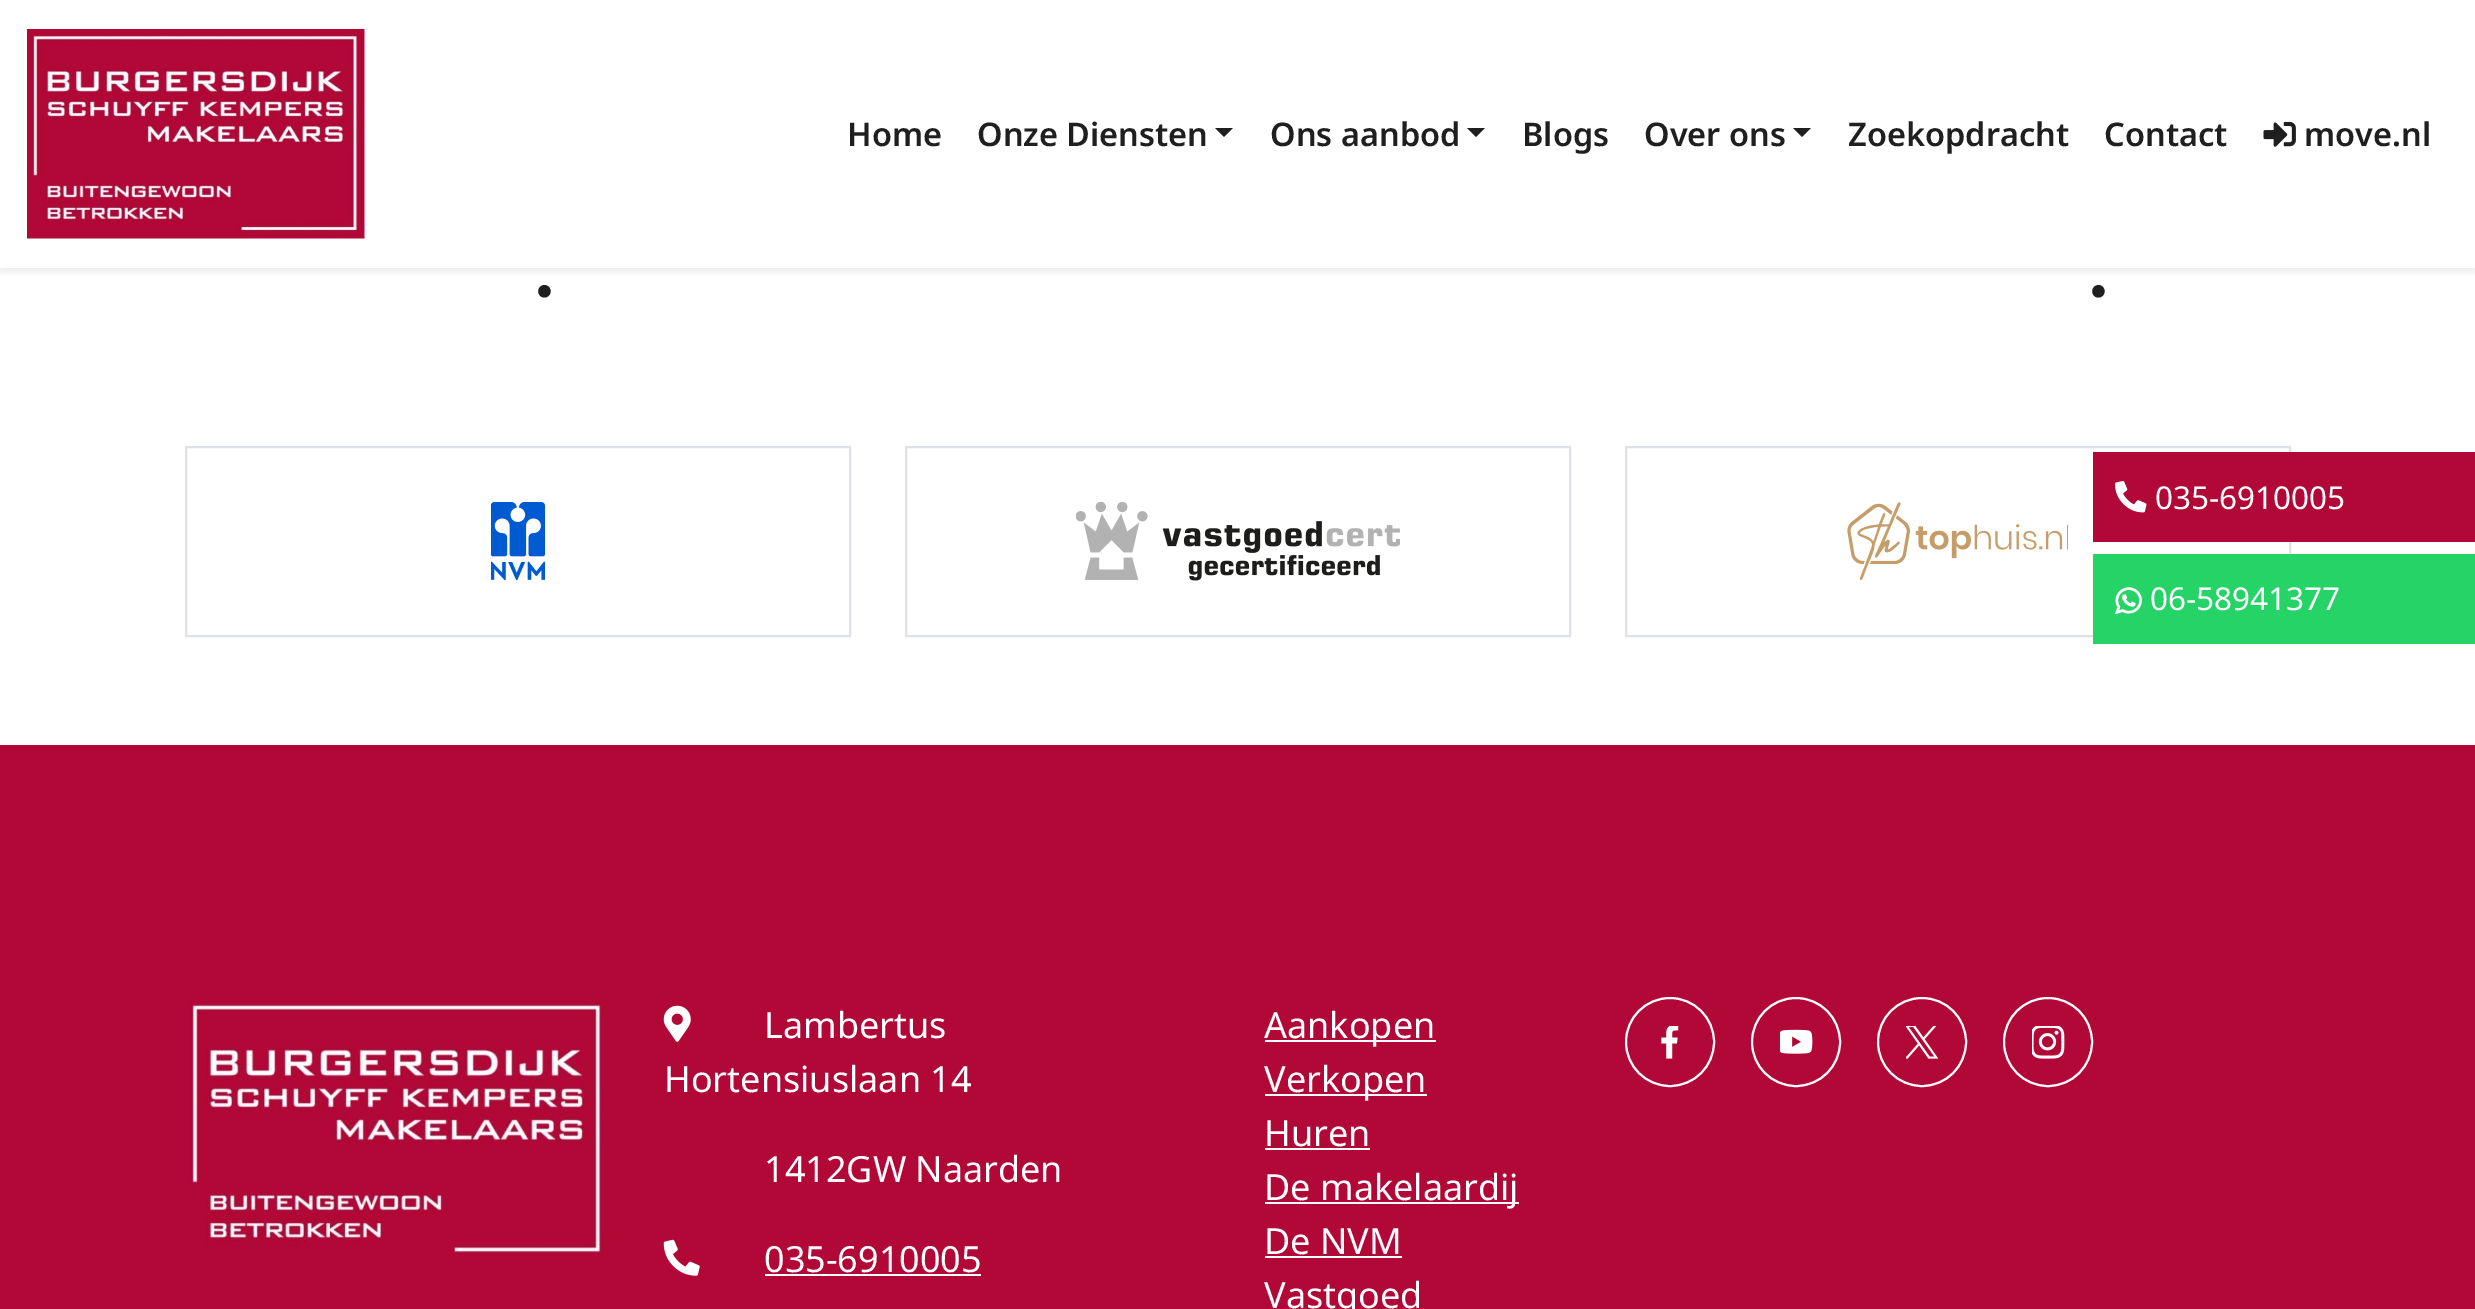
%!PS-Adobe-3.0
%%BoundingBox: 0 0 2475 1309
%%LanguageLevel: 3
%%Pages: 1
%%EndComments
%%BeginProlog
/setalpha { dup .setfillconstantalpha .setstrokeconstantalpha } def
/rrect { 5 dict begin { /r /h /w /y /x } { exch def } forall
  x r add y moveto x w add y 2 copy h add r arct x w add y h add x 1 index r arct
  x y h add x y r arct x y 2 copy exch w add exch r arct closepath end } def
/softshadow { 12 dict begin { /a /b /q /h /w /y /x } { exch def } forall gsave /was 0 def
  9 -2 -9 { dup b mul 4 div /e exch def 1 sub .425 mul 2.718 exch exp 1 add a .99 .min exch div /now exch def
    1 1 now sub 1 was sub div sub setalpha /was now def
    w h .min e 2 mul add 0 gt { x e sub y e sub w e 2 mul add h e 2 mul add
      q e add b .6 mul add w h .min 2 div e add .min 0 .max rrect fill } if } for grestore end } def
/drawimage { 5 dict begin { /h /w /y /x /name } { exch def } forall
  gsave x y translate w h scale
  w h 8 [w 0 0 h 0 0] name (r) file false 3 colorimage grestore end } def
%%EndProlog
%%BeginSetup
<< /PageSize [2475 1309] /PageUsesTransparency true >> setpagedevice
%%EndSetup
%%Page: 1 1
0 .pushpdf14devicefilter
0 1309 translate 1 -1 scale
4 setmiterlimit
1 setgray
0 0 2475 1309 rectfill
gsave
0 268 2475 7 rectclip
0 setgray
0 2 2475 268 0 5.5 0.1 softshadow
grestore
0.9 setalpha
2 267 2471 1 rectfill
1 setalpha
(images/1.raw) 27 29 338 210 drawimage
0.122 setgray
newpath 1215 128 moveto 1233 128 lineto 1224 137 lineto closepath fill
newpath 1467 128 moveto 1485 128 lineto 1476 137 lineto closepath fill
newpath 1793 128 moveto 1811 128 lineto 1802 137 lineto closepath fill
(images/2.raw) 2263 121 33 26 drawimage
0.871 0.886 0.902 setrgbcolor
2 setlinewidth
186 447 664 189 rectstroke
(images/3.raw) 491 502 54 79 drawimage
906 447 664 189 rectstroke
(images/4.raw) 1076 502 324 79 drawimage
1626 447 664 189 rectstroke
(images/5.raw) 1847 502 221 78 drawimage
0.698 0.031 0.216 setrgbcolor
2093 452 382 90 rectfill
(images/6.raw) 2115 481 32 32 drawimage
0.145 0.827 0.4 setrgbcolor
2093 554 382 90 rectfill
(images/7.raw) 2115 587 27 27 drawimage
0.698 0.031 0.216 setrgbcolor
0 745 2475 564 rectfill
(images/8.raw) 187 997 415 261 drawimage
(images/9.raw) 663 1005 28 37 drawimage
(images/10.raw) 663 1239 37 37 drawimage
1 setgray
765 1274 216 2 rectfill
1265 1040 171 2 rectfill
1265 1094 162 2 rectfill
1265 1148 105 2 rectfill
1265 1202 254 2 rectfill
1265 1256 137 2 rectfill
newpath 1670 1042 44 0 360 arc closepath stroke
(images/11.raw) 1661 1026 18 33 drawimage
newpath 1796 1042 44 0 360 arc closepath stroke
(images/12.raw) 1780 1029 33 25 drawimage
newpath 1922 1042 44 0 360 arc closepath stroke
(images/13.raw) 1906 1026 33 33 drawimage
newpath 2048 1042 44 0 360 arc closepath stroke
(images/14.raw) 2032 1026 33 33 drawimage
/NotoSans-SemiBold [32.5 0 0 -32.5 0 0] selectfont
0.122 setgray
847 146 moveto (Home) show
977 146 moveto (Onze Diensten) show
1270 146 moveto (Ons aanbod) show
1522 146 moveto (Blogs) show
1644 146 moveto (Over ons) show
1848 146 moveto (Zoekopdracht) show
2104 146 moveto (Contact) show
2304 146 moveto (move.nl) show
/Poppins-Medium [87 0 0 -87 0 0] selectfont
534 297 moveto (.) show
2088 297 moveto (.) show
/NotoSans-Regular [31.5 0 0 -31.5 0 0] selectfont
1 setgray
2155 509 moveto (035-6910005) show
2150 610 moveto (06-58941377) show
/NotoSans-Regular [36 0 0 -36 0 0] selectfont
764 1038 moveto (Lambertus) show
664 1092 moveto (Hortensiuslaan 14) show
764 1182 moveto (1412GW Naarden) show
764 1272 moveto (035-6910005) show
1264 1038 moveto (Aankopen) show
1264 1092 moveto (Verkopen) show
1264 1146 moveto (Huren) show
1264 1200 moveto (De makelaardij) show
1264 1254 moveto (De NVM) show
1264 1308 moveto (Vastgoed) show
.poppdf14devicefilter showpage
%%EOF
